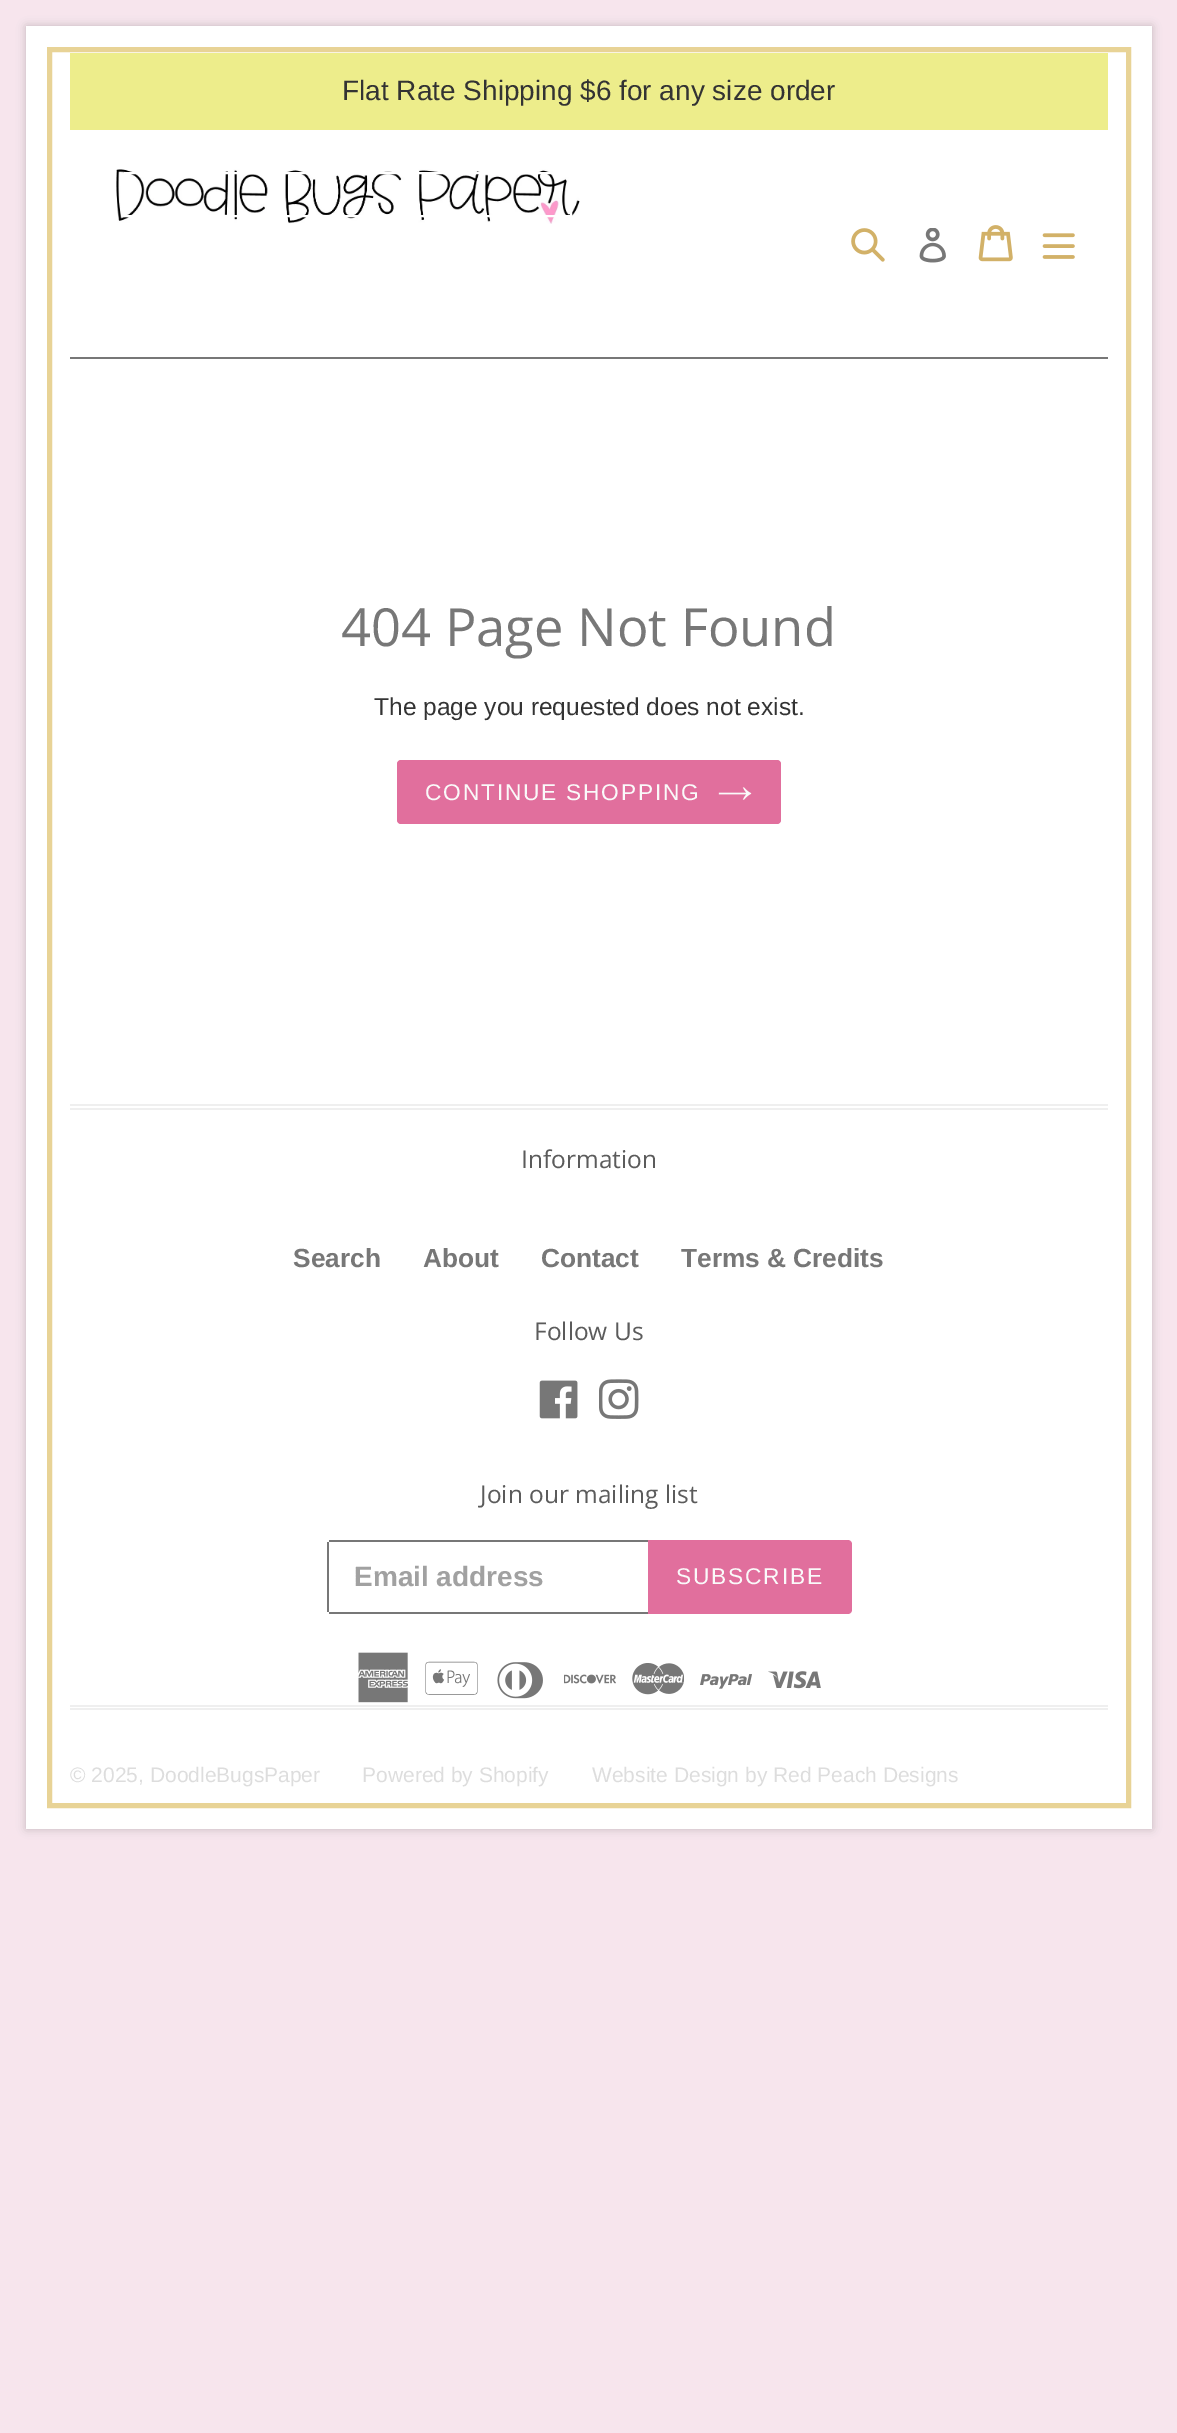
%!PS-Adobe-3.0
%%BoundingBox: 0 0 1177 2433
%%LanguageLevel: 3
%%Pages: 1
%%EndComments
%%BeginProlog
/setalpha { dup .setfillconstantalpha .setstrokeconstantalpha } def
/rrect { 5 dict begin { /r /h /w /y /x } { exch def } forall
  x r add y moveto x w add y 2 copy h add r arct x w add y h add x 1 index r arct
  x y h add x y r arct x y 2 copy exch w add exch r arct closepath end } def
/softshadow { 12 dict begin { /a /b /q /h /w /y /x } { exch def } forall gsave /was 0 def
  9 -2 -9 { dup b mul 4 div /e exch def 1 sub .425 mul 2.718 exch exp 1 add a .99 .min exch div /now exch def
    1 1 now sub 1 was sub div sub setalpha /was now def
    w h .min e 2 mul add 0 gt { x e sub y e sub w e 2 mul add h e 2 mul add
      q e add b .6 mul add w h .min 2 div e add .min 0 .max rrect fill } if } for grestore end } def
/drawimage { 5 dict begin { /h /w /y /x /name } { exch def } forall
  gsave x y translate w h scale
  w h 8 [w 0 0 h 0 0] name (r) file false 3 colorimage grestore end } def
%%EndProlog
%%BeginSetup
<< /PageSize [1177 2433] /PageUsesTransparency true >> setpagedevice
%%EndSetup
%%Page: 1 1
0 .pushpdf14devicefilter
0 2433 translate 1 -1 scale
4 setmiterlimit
0.969 0.898 0.929 setrgbcolor
0 0 1177 2433 rectfill
0.196 setgray
26 26 1126 1803 0 4.5 0.25 softshadow
1 setgray
26 26 1126 1803 rectfill
0.882 0.435 0.616 setrgbcolor
397 760 384 64 4 rrect fill
0.937 setgray
70 1104 1038 2 rectfill
70 1108 1038 2 rectfill
70 1705 1038 2 rectfill
70 1708 1038 2 rectfill
0.91 0.827 0.588 setrgbcolor
5 setlinewidth
49.5 49.5 1079 1756 rectstroke
0.929 0.929 0.545 setrgbcolor
70 53 1038 77 rectfill
0.467 setgray
70 357 1038 2 rectfill
(images/1.raw) 116 169 464 55 drawimage
1 setgray
2 setlinewidth
125 173 446 43 rectstroke
(images/2.raw) 851 228 34 34 drawimage
(images/3.raw) 919 228 27 35 drawimage
(images/4.raw) 978 225 35 37 drawimage
(images/5.raw) 1042 233 33 26 drawimage
(images/6.raw) 718 787 34 13 drawimage
(images/7.raw) 539 1380 39 39 drawimage
(images/8.raw) 599 1379 40 40 drawimage
0.467 setgray
329 1540 319 2 rectfill
329 1612 319 2 rectfill
327 1542 2 70 rectfill
0.882 0.435 0.616 setrgbcolor
newpath 648 1540 moveto 848 1540 lineto 850 1540 852 1542 852 1544 curveto 852 1610 lineto 852 1612 850 1614 848 1614 curveto 648 1614 lineto closepath fill
(images/9.raw) 358 1652 50 51 drawimage
(images/10.raw) 425 1661 53 34 drawimage
(images/11.raw) 497 1662 46 37 drawimage
(images/12.raw) 564 1674 52 10 drawimage
(images/13.raw) 632 1663 52 32 drawimage
(images/14.raw) 700 1674 52 15 drawimage
(images/15.raw) 768 1671 53 18 drawimage
/LiberationSans-Regular [28 0 0 -28 0 0] selectfont
0.2 setgray
342 100 moveto (Flat Rate Shipping $6 for any size order) show
/OpenSans-Regular [52.5 0 0 -52.5 0 0] selectfont
0.467 setgray
341 646 moveto (404 Page Not Found) show
/LiberationSans-Regular [24.5 0 0 -24.5 0 0] selectfont
0.2 setgray
374 715 moveto (The page you requested does not exist.) show
/LiberationSans-Regular [22.75 0 0 -22.75 0 0] selectfont
0.98 setgray
425 800 moveto 1.8 0 (CONTINUE SHOPPING) ashow
/OpenSans-Regular [24.5 0 0 -24.5 0 0] selectfont
0.357 setgray
521 1168 moveto (Information) show
/LiberationSans-Bold [26.25 0 0 -26.25 0 0] selectfont
0.467 setgray
293 1267 moveto (Search) show
423 1267 moveto (About) show
541 1267 moveto (Contact) show
681 1267 moveto (Terms & Credits) show
/OpenSans-Regular [24.5 0 0 -24.5 0 0] selectfont
0.357 setgray
534 1340 moveto (Follow Us) show
480 1503 moveto (Join our mailing list) show
/LiberationSans-Bold [28 0 0 -28 0 0] selectfont
0.631 setgray
354 1586 moveto (Email address) show
/LiberationSans-Regular [22.75 0 0 -22.75 0 0] selectfont
0.98 setgray
676 1584 moveto 1.8 0 (SUBSCRIBE) ashow
/LiberationSans-Regular [21 0 0 -21 0 0] selectfont
0.867 setgray
70 1782 moveto (© 2025, DoodleBugsPaper) show
362 1782 moveto (Powered by Shopify) show
592 1782 moveto (Website Design by Red Peach Designs) show
.poppdf14devicefilter showpage
%%EOF
